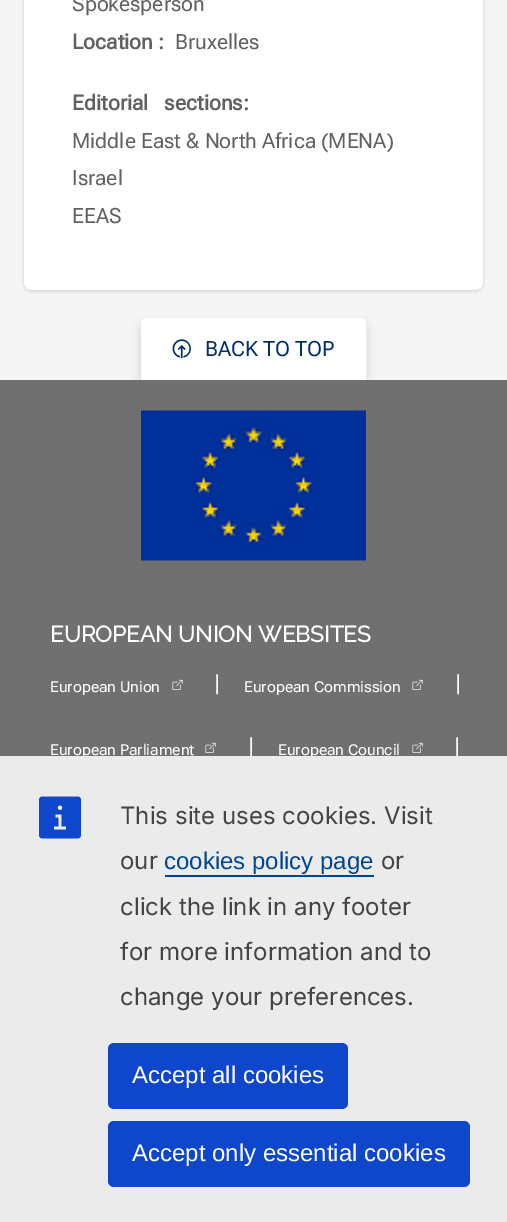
%!PS-Adobe-3.0
%%BoundingBox: 0 0 507 1222
%%LanguageLevel: 3
%%Pages: 1
%%EndComments
%%BeginProlog
/setalpha { dup .setfillconstantalpha .setstrokeconstantalpha } def
/rrect { 5 dict begin { /r /h /w /y /x } { exch def } forall
  x r add y moveto x w add y 2 copy h add r arct x w add y h add x 1 index r arct
  x y h add x y r arct x y 2 copy exch w add exch r arct closepath end } def
/softshadow { 12 dict begin { /a /b /q /h /w /y /x } { exch def } forall gsave /was 0 def
  9 -2 -9 { dup b mul 4 div /e exch def 1 sub .425 mul 2.718 exch exp 1 add a .99 .min exch div /now exch def
    1 1 now sub 1 was sub div sub setalpha /was now def
    w h .min e 2 mul add 0 gt { x e sub y e sub w e 2 mul add h e 2 mul add
      q e add b .6 mul add w h .min 2 div e add .min 0 .max rrect fill } if } for grestore end } def
/drawimage { 5 dict begin { /h /w /y /x /name } { exch def } forall
  gsave x y translate w h scale
  w h 8 [w 0 0 h 0 0] name (r) file false 3 colorimage grestore end } def
%%EndProlog
%%BeginSetup
<< /PageSize [507 1222] /PageUsesTransparency true >> setpagedevice
%%EndSetup
%%Page: 1 1
0 .pushpdf14devicefilter
0 1222 translate 1 -1 scale
4 setmiterlimit
0.961 setgray
0 0 507 1222 rectfill
0 setgray
24 -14 459 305 8 2 0.16 softshadow
1 setgray
24 -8 459 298 8 rrect fill
0 setgray
141 323 225 61 6 5 0.15 softshadow
1 setgray
newpath 147 319 moveto 360 319 lineto 363 319 365 321 365 324 curveto 365 379 lineto 142 379 lineto 142 324 lineto 142 321 144 319 147 319 curveto closepath gsave fill grestore
2 setlinewidth
stroke
(images/1.raw) 172 339 19 20 drawimage
0.439 setgray
2 382 503 374 rectfill
1 381 505 470 rectstroke
(images/2.raw) 141 410 225 151 drawimage
(images/3.raw) 172 679 11 11 drawimage
(images/3.raw) 412 679 11 11 drawimage
(images/3.raw) 205 742 11 11 drawimage
(images/3.raw) 412 742 11 11 drawimage
/RobotoFlex-Regular [21 0 0 -21 0 0] selectfont
0.38 setgray
72 11 moveto (Spokesperson) show
/RobotoFlex-Bold [21 0 0 -21 0 0] selectfont
72 49 moveto (Location :) show
/RobotoFlex-Regular [21 0 0 -21 0 0] selectfont
175 49 moveto (Bruxelles) show
/RobotoFlex-Bold [21 0 0 -21 0 0] selectfont
72 110 moveto 11 0 32 (Editorial sections) widthshow
243 110 moveto (:) show
/RobotoFlex-Regular [21 0 0 -21 0 0] selectfont
72 148 moveto (Middle East & North Africa \(MENA\)) show
72 185 moveto (Israel) show
72 223 moveto (EEAS) show
0 0.184 0.424 setrgbcolor
205 356 moveto (BACK TO TOP) show
/Raleway-Bold [22.5 0 0 -22.5 0 0] selectfont
1 setgray
50 642 moveto (EUROPEAN UNION WEBSITES) show
/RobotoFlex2-Regular [15 0 0 -15 0 0] selectfont
50 692 moveto (European Union) show
/RobotoFlex-Regular [21 0 0 -21 0 0] selectfont
214 690 moveto (|) show
/RobotoFlex2-Regular [15 0 0 -15 0 0] selectfont
244 692 moveto (European Commission) show
/RobotoFlex-Regular [21 0 0 -21 0 0] selectfont
455 690 moveto (|) show
/RobotoFlex2-Regular [15 0 0 -15 0 0] selectfont
50 755 moveto (European Parliament) show
/RobotoFlex-Regular [21 0 0 -21 0 0] selectfont
248 753 moveto (|) show
/RobotoFlex2-Regular [15 0 0 -15 0 0] selectfont
278 755 moveto (European Council) show
/RobotoFlex-Regular [21 0 0 -21 0 0] selectfont
454 753 moveto (|) show
0.922 setgray
0 756 507 466 rectfill
(images/4.raw) 39 796 42 43 drawimage
/Inter-Regular [24 0 0 -24 0 0] selectfont
0.267 setgray
120 824 moveto (This site uses cookies. Visit) show
120 869 moveto (our) show
/LiberationSans-Regular [24 0 0 -24 0 0] selectfont
0 0.267 0.58 setrgbcolor
164 869 moveto (cookies policy page) show
165 875 209 2 rectfill
/Inter-Regular [24 0 0 -24 0 0] selectfont
0.267 setgray
381 869 moveto (or) show
120 915 moveto (click the link in any footer) show
120 960 moveto (for more information and to) show
120 1005 moveto (change your preferences.) show
0.055 0.278 0.796 setrgbcolor
108 1043 240 66 6 rrect fill
/LiberationSans-Regular [24 0 0 -24 0 0] selectfont
1 setgray
132 1083 moveto (Accept all cookies) show
0.055 0.278 0.796 setrgbcolor
108 1121 362 66 6 rrect fill
1 setgray
132 1161 moveto (Accept only essential cookies) show
.poppdf14devicefilter showpage
%%EOF
